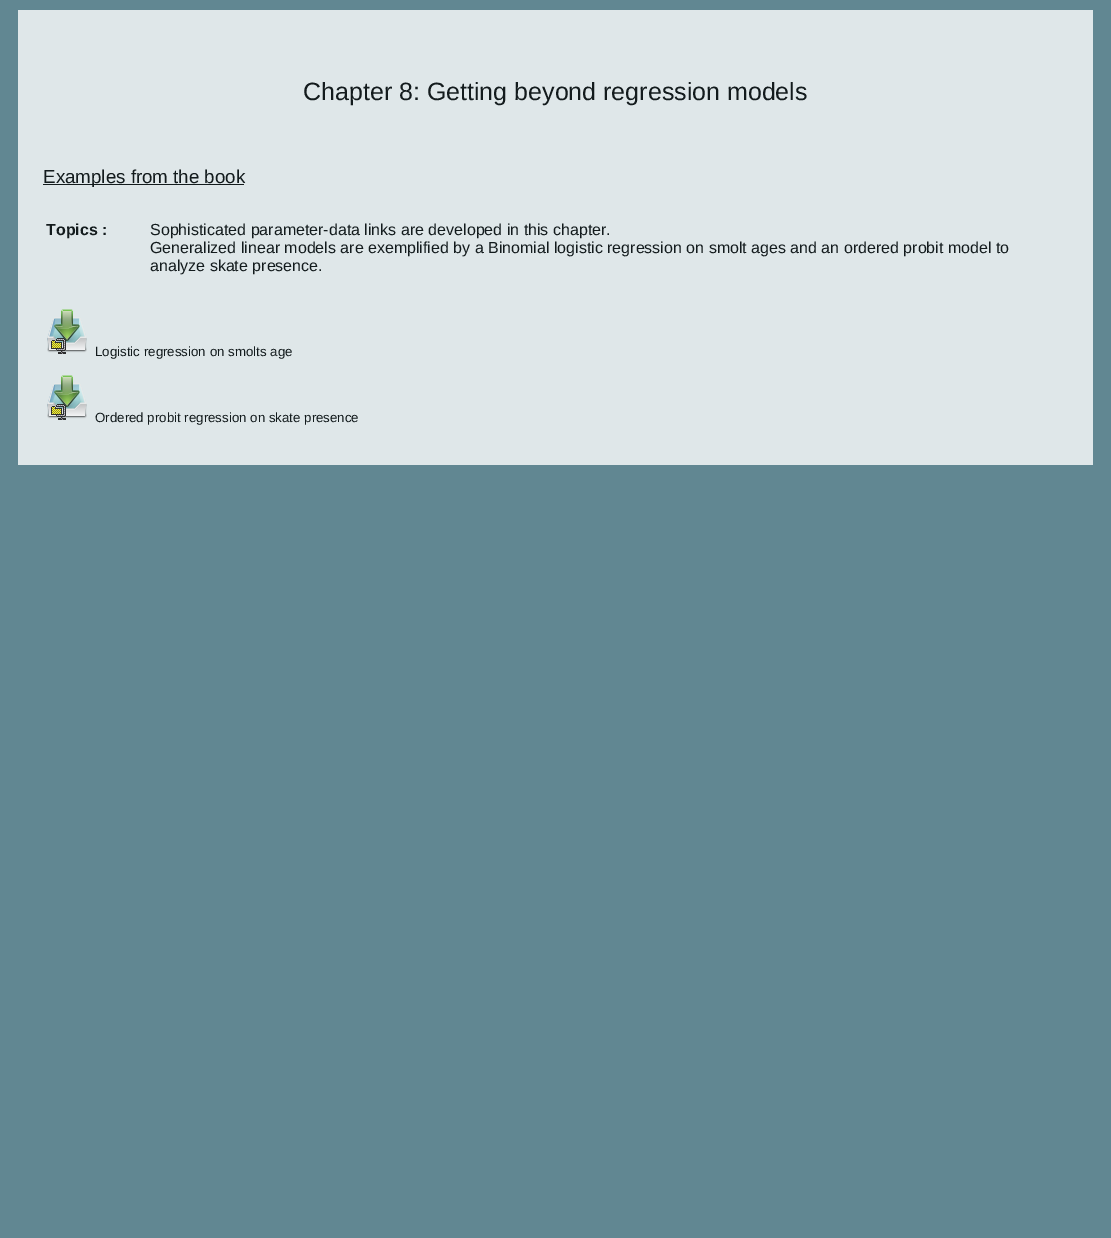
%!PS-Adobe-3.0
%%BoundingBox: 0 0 1111 1238
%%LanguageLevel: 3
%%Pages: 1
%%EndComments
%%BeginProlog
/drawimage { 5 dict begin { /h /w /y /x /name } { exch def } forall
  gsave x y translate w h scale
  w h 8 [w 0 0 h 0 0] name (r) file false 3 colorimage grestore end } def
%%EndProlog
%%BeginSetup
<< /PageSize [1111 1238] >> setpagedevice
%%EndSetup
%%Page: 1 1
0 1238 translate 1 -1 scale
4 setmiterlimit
0.38 0.529 0.573 setrgbcolor
0 0 1111 1238 rectfill
0.875 0.906 0.914 setrgbcolor
18 10 1075 455 rectfill
0.075 0.106 0.114 setrgbcolor
43 184 201 1 rectfill
(images/1.raw) 47 309 40 45 drawimage
(images/1.raw) 47 375 40 45 drawimage
/LiberationSans-Regular [25 0 0 -25 0 0] selectfont
303 100 moveto (Chapter 8: Getting beyond regression models) show
/LiberationSans-Regular [18.75 0 0 -18.75 0 0] selectfont
43 183 moveto (Examples from the book) show
/LiberationSans-Bold [16 0 0 -16 0 0] selectfont
46 235 moveto (Topics :) show
/LiberationSans-Regular [16 0 0 -16 0 0] selectfont
150 235 moveto (Sophisticated parameter-data links are developed in this chapter.) show
150 253 moveto (Generalized linear models are exemplified by a Binomial logistic regression on smolt ages and an ordered probit model to) show
150 271 moveto (analyze skate presence.) show
/LiberationSans-Regular [13.3 0 0 -13.3 0 0] selectfont
95 356 moveto (Logistic regression on smolts age) show
95 422 moveto (Ordered probit regression on skate presence) show
showpage
%%EOF
